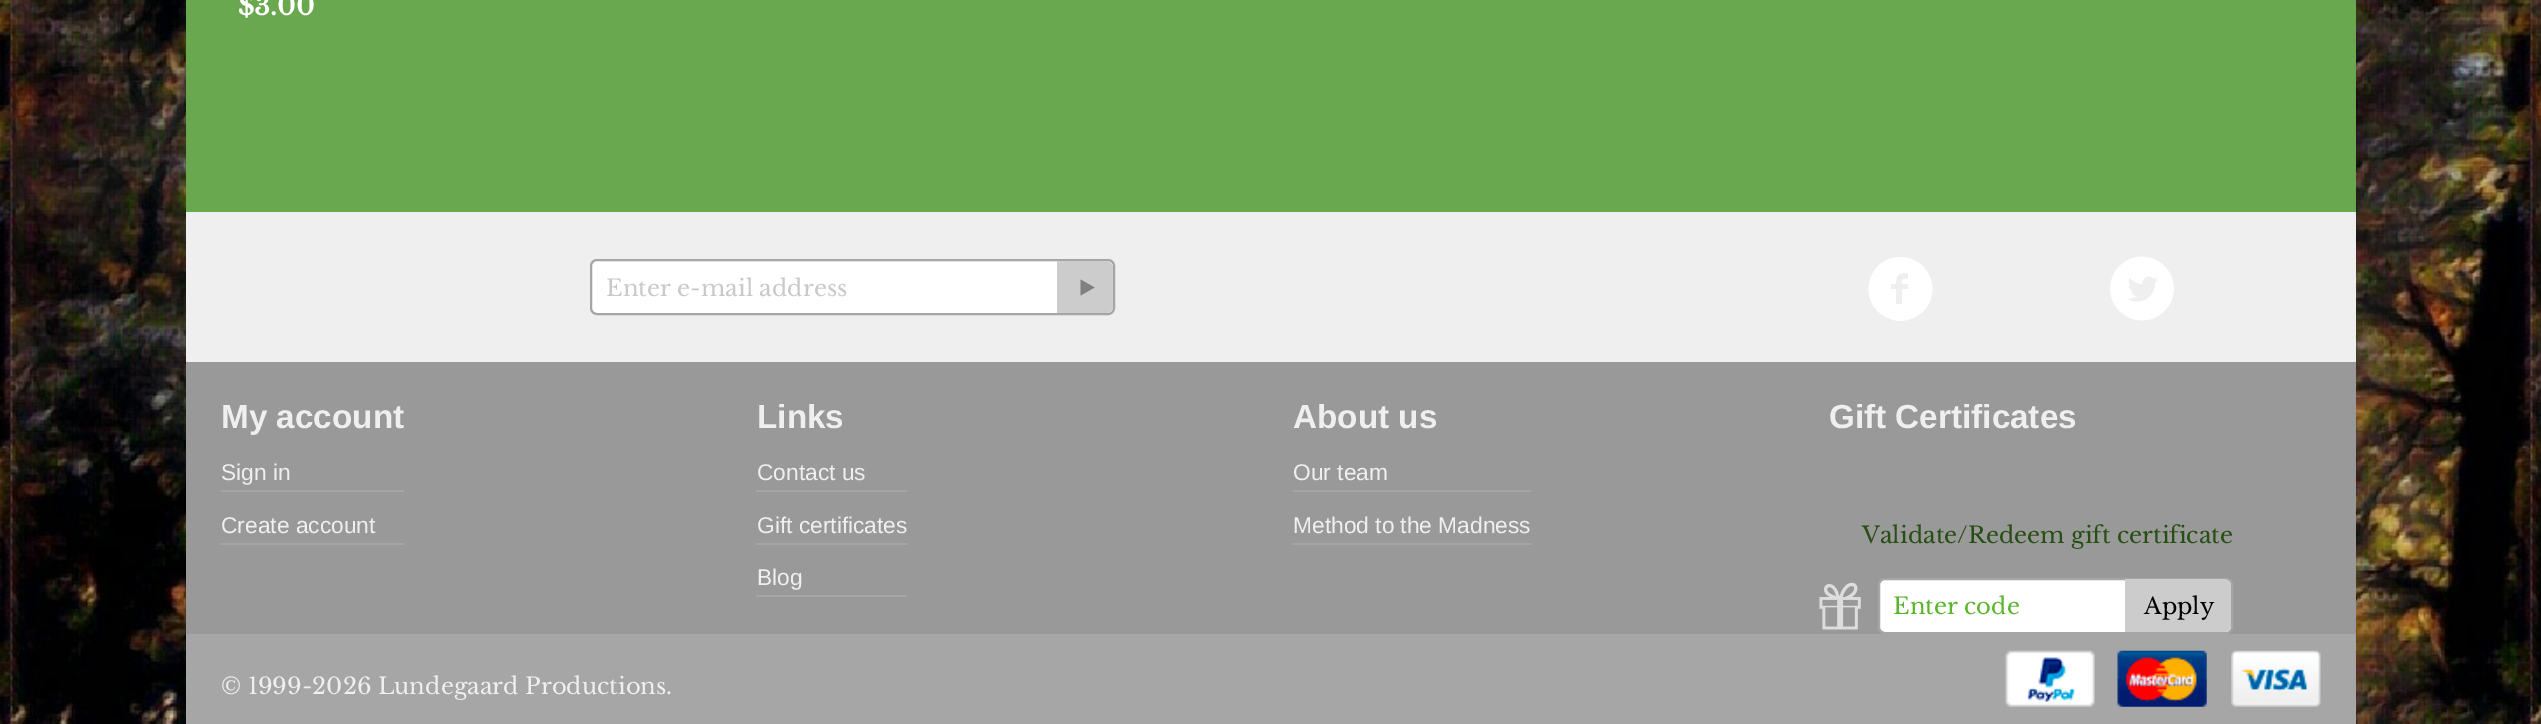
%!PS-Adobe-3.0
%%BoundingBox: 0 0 2541 724
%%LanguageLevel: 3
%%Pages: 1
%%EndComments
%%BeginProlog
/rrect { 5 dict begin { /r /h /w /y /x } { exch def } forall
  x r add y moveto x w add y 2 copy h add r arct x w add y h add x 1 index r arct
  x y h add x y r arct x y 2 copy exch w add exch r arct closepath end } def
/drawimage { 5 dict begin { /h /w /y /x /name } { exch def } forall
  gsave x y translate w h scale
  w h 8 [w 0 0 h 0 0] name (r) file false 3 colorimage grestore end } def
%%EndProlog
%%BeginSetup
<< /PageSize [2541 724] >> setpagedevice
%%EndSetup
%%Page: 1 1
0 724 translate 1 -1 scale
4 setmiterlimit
1 setgray
0 0 2541 724 rectfill
(images/1.raw) 0 0 2541 724 drawimage
0.416 0.659 0.31 setrgbcolor
186 0 2170 212 rectfill
0.6 setgray
186 362 2170 272 rectfill
0.937 setgray
186 212 2170 150 rectfill
1 setgray
591 260 523 54 6 rrect gsave fill grestore
0.651 setgray
2 setlinewidth
stroke
0.8 setgray
newpath 1057 261 moveto 1106 261 lineto 1110 261 1113 264 1113 268 curveto 1113 306 lineto 1113 310 1110 313 1106 313 curveto 1057 313 lineto closepath fill
0.502 setgray
newpath 1080.5 279.5 moveto 1094.5 287.5 lineto 1080.5 295.5 lineto closepath fill
1 setgray
newpath 1900 257 moveto 1870 257 1857 296 1881 314 curveto 1887 318 1894 321 1900 321 curveto 1907 321 1914 318 1920 314 curveto 1944 296 1931 257 1900 257 curveto closepath 1908 279 moveto 1902 279 1902 278 1902 284 curveto 1908 284 lineto 1908 289 lineto 1902 289 lineto 1902 304 lineto 1896 304 lineto 1896 289 lineto 1891 289 lineto 1891 284 lineto 1896 284 lineto 1896 274 1899 273 1908 273 curveto closepath fill
(images/2.raw) 2110 256 64 65 drawimage
0.651 setgray
221 490 183 2 rectfill
221 543 183 2 rectfill
756 490 151 2 rectfill
756 543 151 2 rectfill
756 595 151 2 rectfill
1293 490 238 2 rectfill
1293 543 238 2 rectfill
(images/3.raw) 1819 582 42 48 drawimage
1 setgray
1879 579 353 54 6 rrect gsave fill grestore
0.651 setgray
stroke
0.8 setgray
newpath 2125 579 moveto 2224 579 lineto 2228 579 2231 582 2231 586 curveto 2231 625 lineto 2231 629 2228 632 2224 632 curveto 2125 632 lineto closepath fill
0.651 setgray
186 634 2170 90 rectfill
(images/4.raw) 2005 650 90 57 drawimage
(images/5.raw) 2117 650 90 57 drawimage
(images/6.raw) 2231 650 90 57 drawimage
/LibreBaskerville-Bold [26 0 0 -26 0 0] selectfont
1 setgray
238 15 moveto ($3.00) show
/LibreBaskerville-Regular [22.75 0 0 -22.75 0 0] selectfont
0.788 setgray
606 296 moveto (Enter e-mail address) show
/LiberationSans-Bold [33.25 0 0 -33.25 0 0] selectfont
0.937 setgray
221 428 moveto (My account) show
/LiberationSans-Regular [22.75 0 0 -22.75 0 0] selectfont
221 480 moveto (Sign in) show
221 533 moveto (Create account) show
/LiberationSans-Bold [33.25 0 0 -33.25 0 0] selectfont
757 428 moveto (Links) show
/LiberationSans-Regular [22.75 0 0 -22.75 0 0] selectfont
757 480 moveto (Contact us) show
757 533 moveto (Gift certificates) show
757 585 moveto (Blog) show
/LiberationSans-Bold [33.25 0 0 -33.25 0 0] selectfont
1293 428 moveto (About us) show
/LiberationSans-Regular [22.75 0 0 -22.75 0 0] selectfont
1293 480 moveto (Our team) show
1293 533 moveto (Method to the Madness) show
/LiberationSans-Bold [33.25 0 0 -33.25 0 0] selectfont
1829 428 moveto (Gift Certificates) show
/LibreBaskerville-Regular [22.75 0 0 -22.75 0 0] selectfont
0.153 0.306 0.075 setrgbcolor
1862 543 moveto (Validate/Redeem gift certificate) show
0.353 0.71 0.173 setrgbcolor
1893 614 moveto (Enter code) show
0 setgray
2144 614 moveto (Apply) show
0.937 setgray
221 694 moveto (© 1999-2026 Lundegaard Productions.) show
showpage
%%EOF
